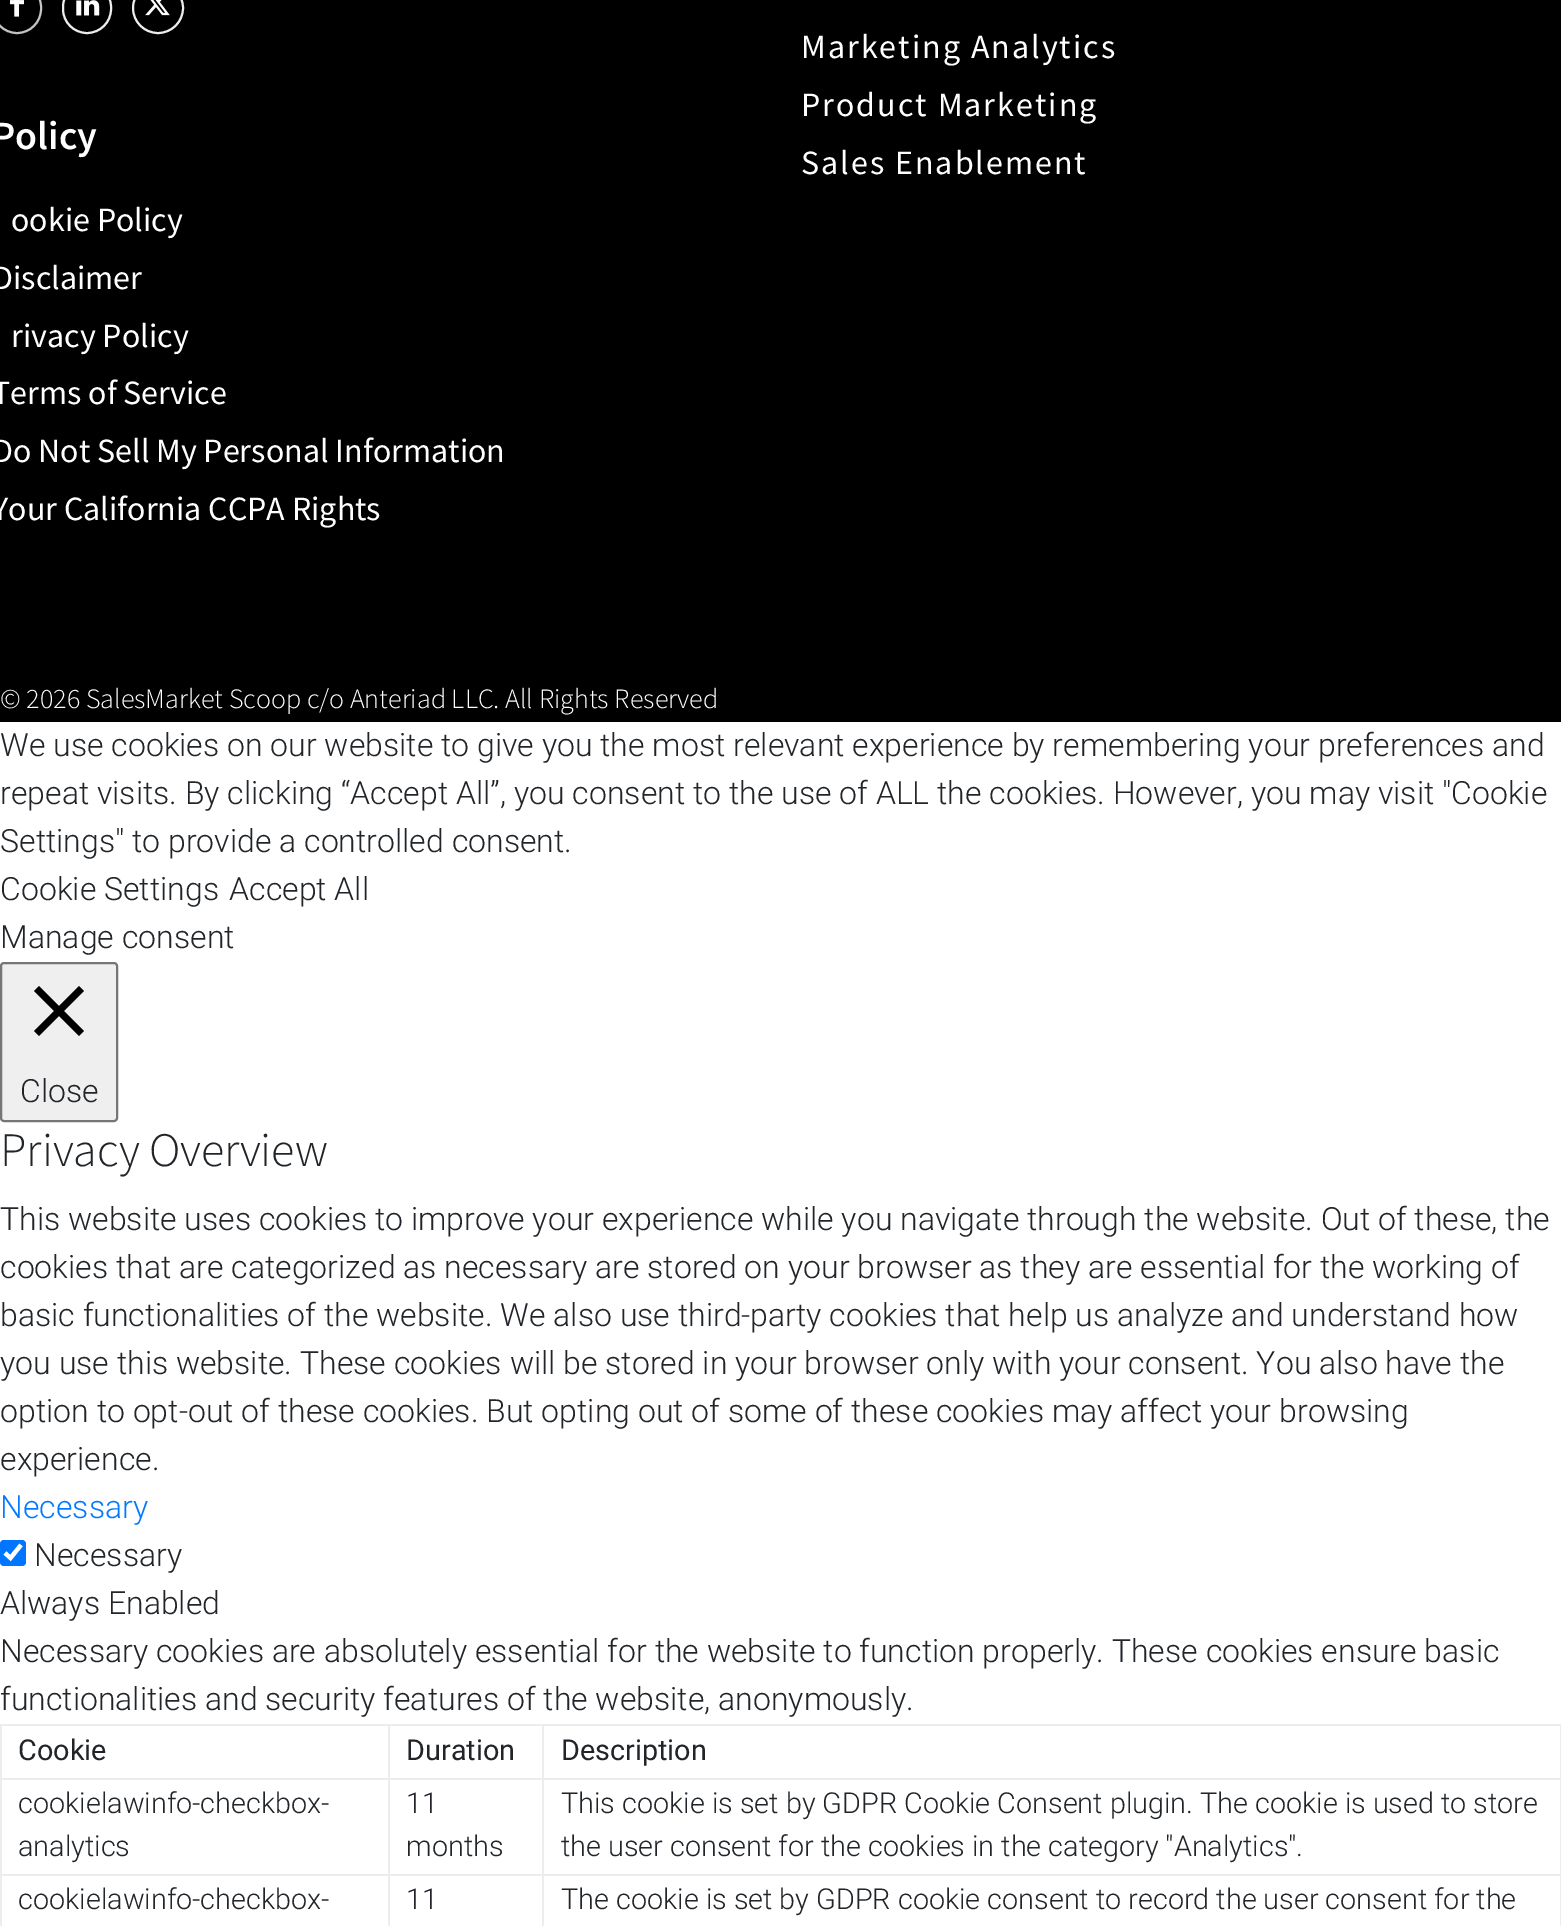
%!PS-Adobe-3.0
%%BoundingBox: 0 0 1561 1926
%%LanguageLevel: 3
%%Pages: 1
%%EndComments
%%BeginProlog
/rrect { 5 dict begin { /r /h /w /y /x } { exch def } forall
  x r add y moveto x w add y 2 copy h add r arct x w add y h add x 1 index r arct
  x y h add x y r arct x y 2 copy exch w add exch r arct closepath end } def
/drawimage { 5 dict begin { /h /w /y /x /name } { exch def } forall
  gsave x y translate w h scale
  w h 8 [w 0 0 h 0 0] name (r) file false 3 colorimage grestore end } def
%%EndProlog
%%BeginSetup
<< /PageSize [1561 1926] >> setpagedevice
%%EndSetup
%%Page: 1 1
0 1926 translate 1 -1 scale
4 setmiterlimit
1 setgray
0 0 1561 1926 rectfill
0 setgray
0 0 1561 722 rectfill
0.765 setgray
2 setlinewidth
-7 -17 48 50 24 rrect stroke
(images/1.raw) 10 0 14 17 drawimage
0.929 setgray
63 -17 48 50 24 rrect stroke
(images/2.raw) 76 0 24 16 drawimage
newpath 158 8 25 0 360 arc closepath stroke
(images/3.raw) 145 0 25 16 drawimage
0.937 setgray
1 963 116 158 3 rrect gsave fill grestore
0.463 setgray
stroke
0 setgray
newpath 84 991 moveto 79 986 lineto 59 1006 lineto 39 986 lineto 34 991 lineto 54 1011 lineto 34 1031 lineto 39 1036 lineto 59 1016 lineto 79 1036 lineto 84 1031 lineto 64 1011 lineto closepath fill
0 0.459 1 setrgbcolor
0 1540 26 26 4 rrect fill
1 setgray
4.2 setlinewidth
newpath 5 1553 moveto 10.5 1558 lineto 21 1545 lineto stroke
0.929 setgray
542 1724 1019 2 rectfill
542 1778 1019 2 rectfill
542 1874 1019 2 rectfill
542 1874 2 52 rectfill
388 1874 156 2 rectfill
542 1778 2 98 rectfill
388 1778 156 2 rectfill
542 1724 2 56 rectfill
388 1724 156 2 rectfill
388 1874 2 52 rectfill
0 1874 390 2 rectfill
388 1778 2 98 rectfill
0 1778 390 2 rectfill
388 1724 2 56 rectfill
0 1724 390 2 rectfill
0 1874 2 52 rectfill
0 1778 2 98 rectfill
0 1724 2 56 rectfill
1560 1874 1 52 rectfill
1560 1778 1 98 rectfill
1560 1724 1 56 rectfill
/SourceSansPro-Regular [34 0 0 -34 0 0] selectfont
1 setgray
801 58 moveto 2 0 (Marketing Analytics) ashow
801 116 moveto 2 0 (Product Marketing) ashow
801 174 moveto 2 0 (Sales Enablement) ashow
/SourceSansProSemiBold-SemiBold [40 0 0 -40 0 0] selectfont
-8 149 moveto (Policy) show
/SourceSansPro-Regular [34 0 0 -34 0 0] selectfont
11 231 moveto (ookie Policy) show
-8 289 moveto (Disclaimer) show
11 347 moveto (rivacy Policy) show
-8 404 moveto (Terms of Service) show
-8 462 moveto (Do Not Sell My Personal Information) show
-8 520 moveto (Your California CCPA Rights) show
/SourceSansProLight-Light [28 0 0 -28 0 0] selectfont
0 708 moveto (© 2026 SalesMarket Scoop c/o Anteriad LLC. All Rights Reserved) show
/Roboto-Light [32 0 0 -32 0 0] selectfont
0.129 0.145 0.161 setrgbcolor
0 756 moveto (We use cookies on our website to give you the most relevant experience by remembering your preferences and) show
0 804 moveto (repeat visits. By clicking “Accept All”, you consent to the use of ALL the cookies. However, you may visit "Cookie) show
0 852 moveto (Settings" to provide a controlled consent.) show
0 900 moveto (Cookie Settings) show
229 900 moveto (Accept All) show
0 948 moveto (Manage consent) show
20 1102 moveto (Close) show
/SourceSansProLight-Light [48 0 0 -48 0 0] selectfont
0 1166 moveto (Privacy Overview) show
/Roboto-Light [32 0 0 -32 0 0] selectfont
0 1230 moveto (This website uses cookies to improve your experience while you navigate through the website. Out of these, the) show
0 1278 moveto (cookies that are categorized as necessary are stored on your browser as they are essential for the working of) show
0 1326 moveto (basic functionalities of the website. We also use third-party cookies that help us analyze and understand how) show
0 1374 moveto (you use this website. These cookies will be stored in your browser only with your consent. You also have the) show
0 1422 moveto (option to opt-out of these cookies. But opting out of some of these cookies may affect your browsing) show
0 1470 moveto (experience.) show
0 0.482 1 setrgbcolor
0 1518 moveto (Necessary) show
0.129 0.145 0.161 setrgbcolor
34 1566 moveto (Necessary) show
0 1614 moveto (Always Enabled) show
0 1662 moveto (Necessary cookies are absolutely essential for the website to function properly. These cookies ensure basic) show
0 1710 moveto (functionalities and security features of the website, anonymously.) show
/Roboto-Regular [28.8 0 0 -28.8 0 0] selectfont
18 1760 moveto (Cookie) show
406 1760 moveto (Duration) show
561 1760 moveto (Description) show
/Roboto-Light [28.8 0 0 -28.8 0 0] selectfont
18 1813 moveto (cookielawinfo-checkbox-) show
18 1856 moveto (analytics) show
406 1813 moveto (11) show
406 1856 moveto (months) show
561 1813 moveto (This cookie is set by GDPR Cookie Consent plugin. The cookie is used to store) show
561 1856 moveto (the user consent for the cookies in the category "Analytics".) show
18 1909 moveto (cookielawinfo-checkbox-) show
406 1909 moveto (11) show
561 1909 moveto (The cookie is set by GDPR cookie consent to record the user consent for the) show
showpage
%%EOF
